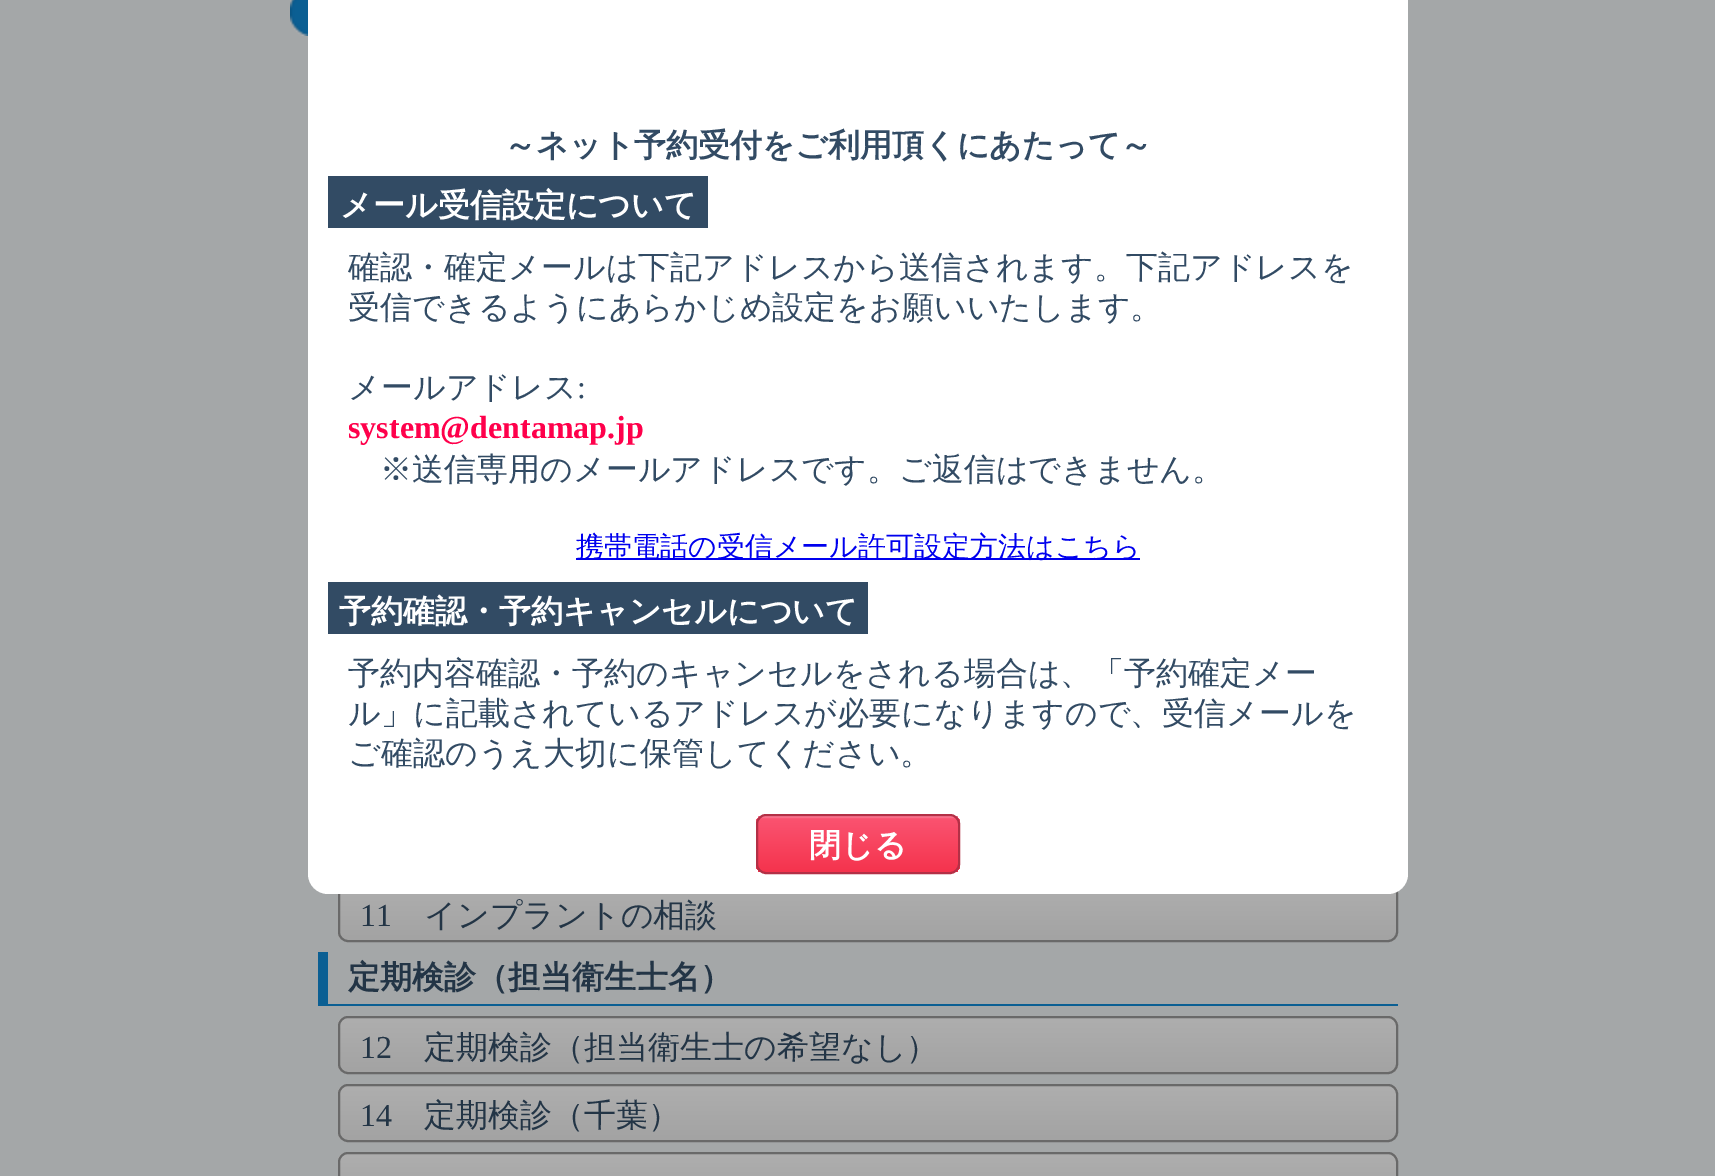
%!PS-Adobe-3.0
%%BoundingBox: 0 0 1715 1176
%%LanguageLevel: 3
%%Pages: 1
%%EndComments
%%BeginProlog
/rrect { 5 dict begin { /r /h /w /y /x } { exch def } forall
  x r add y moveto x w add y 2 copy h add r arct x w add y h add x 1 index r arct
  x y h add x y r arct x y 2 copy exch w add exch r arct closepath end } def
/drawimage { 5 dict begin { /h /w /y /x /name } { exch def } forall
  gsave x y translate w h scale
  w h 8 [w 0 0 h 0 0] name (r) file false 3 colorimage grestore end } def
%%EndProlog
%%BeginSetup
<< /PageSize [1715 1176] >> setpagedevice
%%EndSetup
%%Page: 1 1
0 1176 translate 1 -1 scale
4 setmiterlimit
0.643 0.655 0.659 setrgbcolor
0 0 1715 1176 rectfill
gsave
338 884 1060 58 10 rrect clip newpath
gsave newpath 338 891 moveto 1398 891 lineto 1398 940 lineto 338 940 lineto closepath clip newpath
<< /ShadingType 2 /ColorSpace /DeviceRGB /Coords [340 886 340 940] /Extend [true true] /Function << /FunctionType 2 /Domain [0 1] /C0 [0.682 0.682 0.682] /C1 [0.639 0.639 0.639] /N 1 >> >> shfill grestore
grestore
0.412 setgray
2 setlinewidth
339 885 1058 56 9 rrect stroke
1 setgray
308 -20 1100 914 20 rrect fill
0.196 0.294 0.392 setrgbcolor
328 176 380 52 rectfill
0 0 0.933 setrgbcolor
576 558 564 2 rectfill
0.196 0.294 0.392 setrgbcolor
328 582 540 52 rectfill
gsave
756 814 204 60 10 rrect clip newpath
gsave newpath 756 816 moveto 960 816 lineto 960 872 lineto 756 872 lineto closepath clip newpath
<< /ShadingType 2 /ColorSpace /DeviceRGB /Coords [758 816 758 872] /Extend [true true] /Function << /FunctionType 3 /Domain [0 1] /Functions [<< /FunctionType 2 /Domain [0 1] /C0 [1 0.549 0.647] /C1 [0.98 0.325 0.439] /N 1 >> << /FunctionType 2 /Domain [0 1] /C0 [0.98 0.325 0.439] /C1 [0.961 0.2 0.302] /N 1 >>] /Bounds [0.05] /Encode [0 1 0 1] >> >> shfill grestore
grestore
0.702 0.188 0.275 setrgbcolor
757 815 202 58 9 rrect stroke
(images/1.raw) 290 0 18 36 drawimage
0.043 0.373 0.576 setrgbcolor
328 1004 1070 2 rectfill
318 952 10 54 rectfill
gsave
338 1016 1060 58 10 rrect clip newpath
gsave newpath 338 1018 moveto 1398 1018 lineto 1398 1072 lineto 338 1072 lineto closepath clip newpath
<< /ShadingType 2 /ColorSpace /DeviceRGB /Coords [340 1018 340 1072] /Extend [true true] /Function << /FunctionType 2 /Domain [0 1] /C0 [0.682 0.682 0.682] /C1 [0.639 0.639 0.639] /N 1 >> >> shfill grestore
grestore
0.412 setgray
339 1017 1058 56 9 rrect stroke
gsave
338 1084 1060 58 10 rrect clip newpath
gsave newpath 338 1086 moveto 1398 1086 lineto 1398 1140 lineto 338 1140 lineto closepath clip newpath
<< /ShadingType 2 /ColorSpace /DeviceRGB /Coords [340 1086 340 1140] /Extend [true true] /Function << /FunctionType 2 /Domain [0 1] /C0 [0.682 0.682 0.682] /C1 [0.639 0.639 0.639] /N 1 >> >> shfill grestore
grestore
339 1085 1058 56 9 rrect stroke
gsave
338 1152 1060 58 10 rrect clip newpath
gsave newpath 338 1154 moveto 1398 1154 lineto 1398 1176 lineto 338 1176 lineto closepath clip newpath
<< /ShadingType 2 /ColorSpace /DeviceRGB /Coords [340 1154 340 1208] /Extend [true true] /Function << /FunctionType 2 /Domain [0 1] /C0 [0.682 0.682 0.682] /C1 [0.639 0.639 0.639] /N 1 >> >> shfill grestore
grestore
339 1153 1058 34 9 rrect stroke
/WenQuanYiZenHei-Bold [32 0 0 -32 0 0] selectfont
0.196 0.294 0.392 setrgbcolor
504 156 moveto (～ネット予約受付をご利用頂くにあたって～) show
1 setgray
340 216 moveto (メール受信設定について) show
/WenQuanYiZenHei-Medium [32 0 0 -32 0 0] selectfont
0.196 0.294 0.392 setrgbcolor
348 278 moveto (確認・確定メールは下記アドレスから送信されます。下記アドレスを) show
348 318 moveto (受信できるようにあらかじめ設定をお願いいたします。) show
348 398 moveto (メールアドレス) show
/LiberationSerif-Regular [32 0 0 -32 0 0] selectfont
577 398 moveto (:) show
/LiberationSerif-Bold [32 0 0 -32 0 0] selectfont
1 0 0.294 setrgbcolor
348 438 moveto (system@dentamap.jp) show
/WenQuanYiZenHei-Medium [32 0 0 -32 0 0] selectfont
0.196 0.294 0.392 setrgbcolor
380 480 moveto (※送信専用のメールアドレスです。ご返信はできません。) show
/WenQuanYiZenHei-Medium [28 0 0 -28 0 0] selectfont
0 0 0.933 setrgbcolor
576 556 moveto (携帯電話の受信メール許可設定方法はこちら) show
/WenQuanYiZenHei-Bold [32 0 0 -32 0 0] selectfont
1 setgray
339 622 moveto (予約確認・予約キャンセルについて) show
/WenQuanYiZenHei-Medium [32 0 0 -32 0 0] selectfont
0.196 0.294 0.392 setrgbcolor
348 684 moveto (予約内容確認・予約のキャンセルをされる場合は、「予約確定メー) show
348 724 moveto (ル」に記載されているアドレスが必要になりますので、受信メールを) show
348 764 moveto (ご確認のうえ大切に保管してください。) show
/WenQuanYiZenHei-Bold [32 0 0 -32 0 0] selectfont
1 setgray
809 856 moveto (閉じる) show
/LiberationSerif-Regular [32 0 0 -32 0 0] selectfont
0.137 0.208 0.275 setrgbcolor
360 926 moveto (11) show
/WenQuanYiZenHei-Medium [32 0 0 -32 0 0] selectfont
424 926 moveto (インプラントの相談) show
/WenQuanYiZenHei-Bold [32 0 0 -32 0 0] selectfont
348 988 moveto (定期検診（担当衛生士名）) show
/LiberationSerif-Regular [32 0 0 -32 0 0] selectfont
360 1058 moveto (12) show
/WenQuanYiZenHei-Medium [32 0 0 -32 0 0] selectfont
424 1058 moveto (定期検診（担当衛生士の希望なし）) show
/LiberationSerif-Regular [32 0 0 -32 0 0] selectfont
360 1126 moveto (14) show
/WenQuanYiZenHei-Medium [32 0 0 -32 0 0] selectfont
424 1126 moveto (定期検診（千葉）) show
showpage
%%EOF
